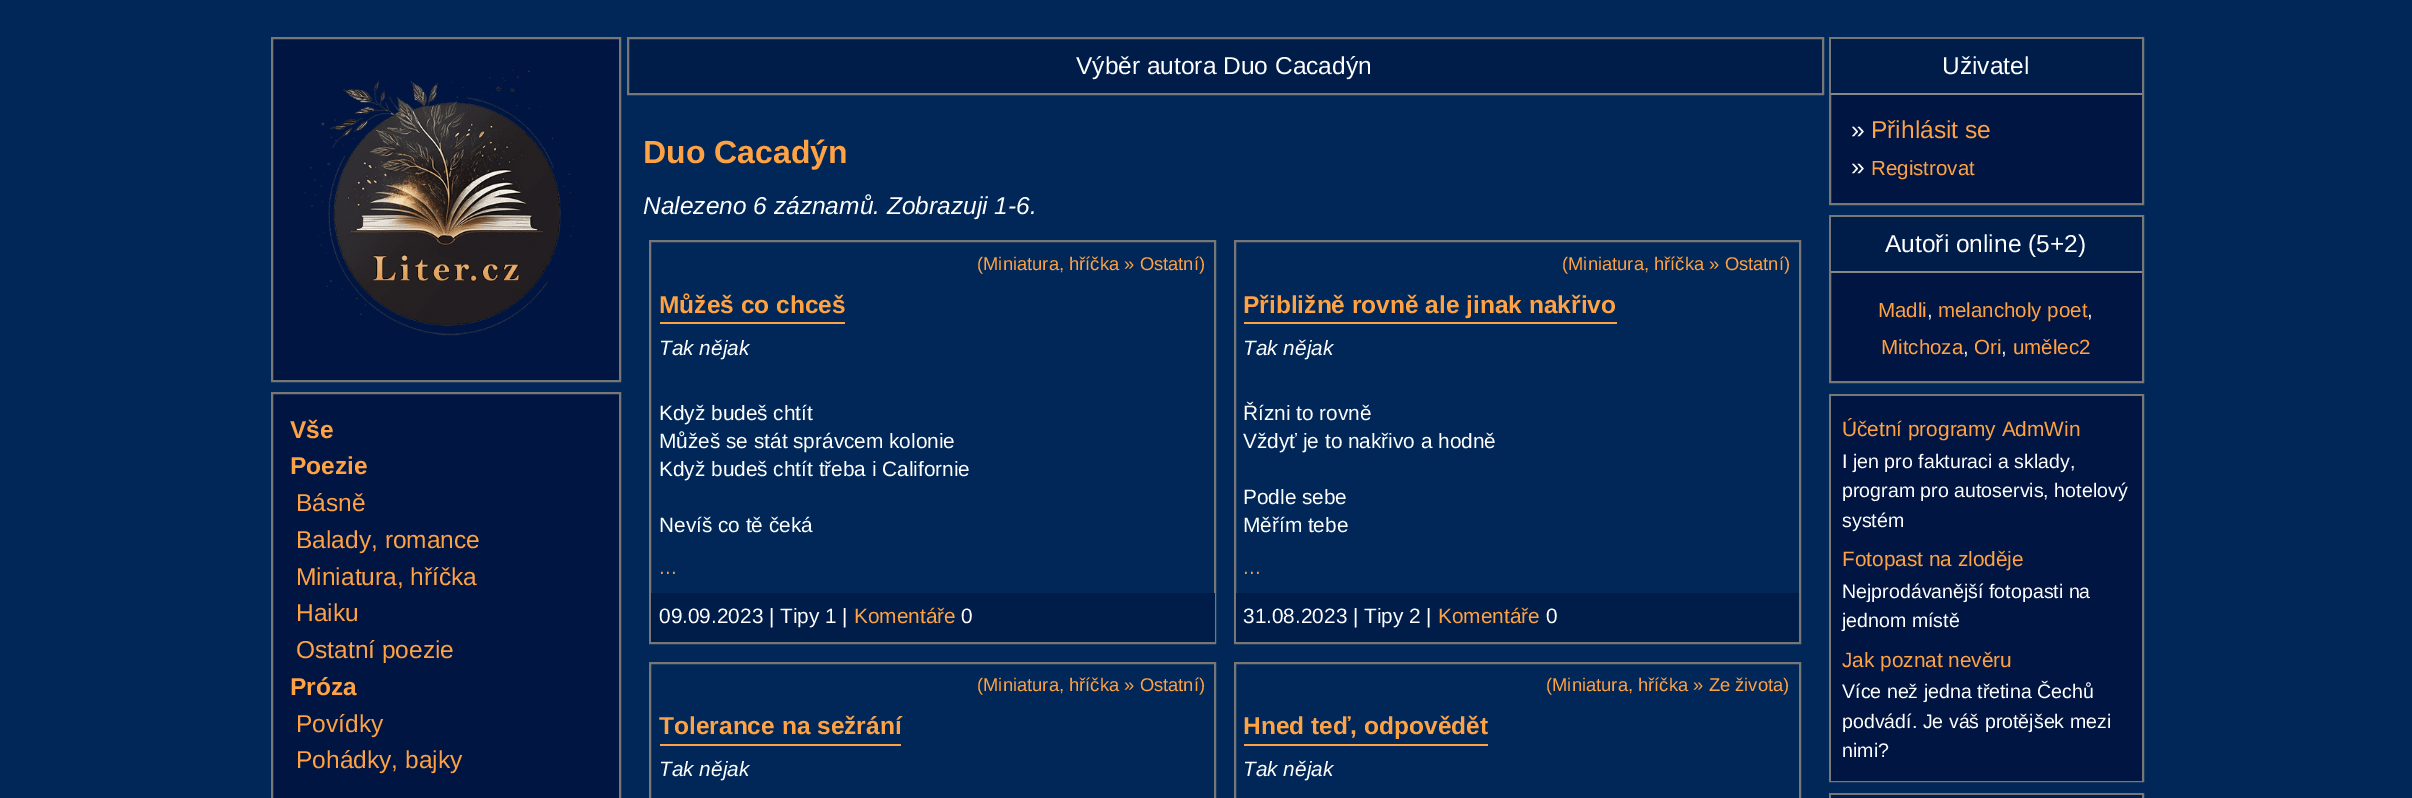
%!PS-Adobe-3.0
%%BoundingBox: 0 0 2412 798
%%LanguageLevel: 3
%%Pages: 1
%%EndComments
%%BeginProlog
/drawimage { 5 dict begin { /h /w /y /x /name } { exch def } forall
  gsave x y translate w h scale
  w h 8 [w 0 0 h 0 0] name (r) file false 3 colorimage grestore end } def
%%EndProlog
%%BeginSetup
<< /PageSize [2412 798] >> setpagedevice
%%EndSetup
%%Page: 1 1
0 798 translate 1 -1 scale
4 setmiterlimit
0 0.153 0.341 setrgbcolor
0 0 2412 798 rectfill
0 0.082 0.255 setrgbcolor
newpath 272 38 moveto 620 38 lineto 620 381 lineto 272 381 lineto closepath gsave fill grestore
0.467 setgray
2 setlinewidth
stroke
(images/1.raw) 304 69 270 267 drawimage
0 0.082 0.255 setrgbcolor
newpath 272 393 moveto 620 393 lineto 620 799 lineto 272 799 lineto closepath gsave fill grestore
0.467 setgray
stroke
0 0.114 0.286 setrgbcolor
newpath 628 38 moveto 1823 38 lineto 1823 94 lineto 628 94 lineto closepath gsave fill grestore
0.467 setgray
stroke
650 241 565 402 rectstroke
1 0.635 0.267 setrgbcolor
660 322 185 2 rectfill
0 0.114 0.286 setrgbcolor
651 593 564 49 rectfill
0.467 setgray
1235 241 565 402 rectstroke
1 0.635 0.267 setrgbcolor
1244 322 373 2 rectfill
0 0.114 0.286 setrgbcolor
1236 593 563 49 rectfill
0.467 setgray
650 663 565 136 rectstroke
1 0.635 0.267 setrgbcolor
660 744 241 2 rectfill
0.467 setgray
1235 663 565 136 rectstroke
1 0.635 0.267 setrgbcolor
1244 744 244 2 rectfill
0 0.082 0.255 setrgbcolor
1831 95 311 108 rectfill
0.467 setgray
1830 38 313 166 rectstroke
0 0.114 0.286 setrgbcolor
1831 39 311 54 rectfill
0.533 setgray
1831 93 311 2 rectfill
0 0.082 0.255 setrgbcolor
1831 273 311 108 rectfill
0.467 setgray
1830 216 313 166 rectstroke
0 0.114 0.286 setrgbcolor
1831 217 311 54 rectfill
0.533 setgray
1831 271 311 2 rectfill
0.467 setgray
1830 395 313 386 rectstroke
0 0.082 0.255 setrgbcolor
1831 396 311 385 rectfill
0.467 setgray
1830 794 313 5 rectstroke
0 0.114 0.286 setrgbcolor
1831 795 311 3 rectfill
/LiberationSans-Bold [24.5 0 0 -24.5 0 0] selectfont
1 0.635 0.267 setrgbcolor
290 438 moveto (Vše) show
290 474 moveto (Poezie) show
/LiberationSans-Regular [24.5 0 0 -24.5 0 0] selectfont
296 511 moveto (Básně) show
296 548 moveto (Balady, romance) show
296 585 moveto (Miniatura, hříčka) show
296 621 moveto (Haiku) show
296 658 moveto (Ostatní poezie) show
/LiberationSans-Bold [24.5 0 0 -24.5 0 0] selectfont
290 695 moveto (Próza) show
/LiberationSans-Regular [24.5 0 0 -24.5 0 0] selectfont
296 732 moveto (Povídky) show
296 768 moveto (Pohádky, bajky) show
1 setgray
1076 74 moveto (Výběr autora Duo Cacadýn) show
/LiberationSans-Bold [32 0 0 -32 0 0] selectfont
1 0.635 0.267 setrgbcolor
643 163 moveto (Duo Cacadýn) show
/LiberationSans-Italic [24.5 0 0 -24.5 0 0] selectfont
1 setgray
643 214 moveto (Nalezeno 6 záznamů. Zobrazuji 1-6.) show
/LiberationSans-Regular [18.4 0 0 -18.4 0 0] selectfont
1 0.635 0.267 setrgbcolor
977 270 moveto (\(Miniatura, hříčka » Ostatní\)) show
/LiberationSans-Bold [24.5 0 0 -24.5 0 0] selectfont
659 313 moveto (Můžeš co chceš) show
/LiberationSans-Italic [20.8 0 0 -20.8 0 0] selectfont
1 setgray
659 355 moveto (Tak nějak) show
/LiberationSans-Regular [20.8 0 0 -20.8 0 0] selectfont
659 420 moveto (Když budeš chtít) show
659 448 moveto (Můžeš se stát správcem kolonie) show
659 476 moveto (Když budeš chtít třeba i Californie) show
659 532 moveto (Nevíš co tě čeká) show
1 0.635 0.267 setrgbcolor
659 574 moveto (...) show
1 setgray
659 623 moveto (09.09.2023 | Tipy 1 |) show
1 0.635 0.267 setrgbcolor
854 623 moveto (Komentáře) show
1 setgray
961 623 moveto (0) show
/LiberationSans-Regular [18.4 0 0 -18.4 0 0] selectfont
1 0.635 0.267 setrgbcolor
1562 270 moveto (\(Miniatura, hříčka » Ostatní\)) show
/LiberationSans-Bold [24.5 0 0 -24.5 0 0] selectfont
1243 313 moveto (Přibližně rovně ale jinak nakřivo) show
/LiberationSans-Italic [20.8 0 0 -20.8 0 0] selectfont
1 setgray
1243 355 moveto (Tak nějak) show
/LiberationSans-Regular [20.8 0 0 -20.8 0 0] selectfont
1243 420 moveto (Řízni to rovně) show
1243 448 moveto (Vždyť je to nakřivo a hodně) show
1243 504 moveto (Podle sebe) show
1243 532 moveto (Měřím tebe) show
1 0.635 0.267 setrgbcolor
1243 574 moveto (...) show
1 setgray
1243 623 moveto (31.08.2023 | Tipy 2 |) show
1 0.635 0.267 setrgbcolor
1438 623 moveto (Komentáře) show
1 setgray
1546 623 moveto (0) show
/LiberationSans-Regular [18.4 0 0 -18.4 0 0] selectfont
1 0.635 0.267 setrgbcolor
977 691 moveto (\(Miniatura, hříčka » Ostatní\)) show
/LiberationSans-Bold [24.5 0 0 -24.5 0 0] selectfont
659 734 moveto (Tolerance na sežrání) show
/LiberationSans-Italic [20.8 0 0 -20.8 0 0] selectfont
1 setgray
659 776 moveto (Tak nějak) show
/LiberationSans-Regular [18.4 0 0 -18.4 0 0] selectfont
1 0.635 0.267 setrgbcolor
1546 691 moveto (\(Miniatura, hříčka » Ze života\)) show
/LiberationSans-Bold [24.5 0 0 -24.5 0 0] selectfont
1243 734 moveto (Hned teď, odpovědět) show
/LiberationSans-Italic [20.8 0 0 -20.8 0 0] selectfont
1 setgray
1243 776 moveto (Tak nějak) show
/LiberationSans-Regular [24.5 0 0 -24.5 0 0] selectfont
1942 74 moveto (Uživatel) show
1851 138 moveto (») show
1 0.635 0.267 setrgbcolor
1871 138 moveto (Přihlásit se) show
1 setgray
1851 175 moveto (») show
/LiberationSans-Regular [20.5 0 0 -20.5 0 0] selectfont
1 0.635 0.267 setrgbcolor
1871 175 moveto (Registrovat) show
/LiberationSans-Regular [24.5 0 0 -24.5 0 0] selectfont
1 setgray
1885 252 moveto (Autoři online \(5+2\)) show
/LiberationSans-Regular [20.5 0 0 -20.5 0 0] selectfont
1 0.635 0.267 setrgbcolor
1878 317 moveto (Madli) show
1 setgray
1927 317 moveto (,) show
1 0.635 0.267 setrgbcolor
1938 317 moveto (melancholy poet) show
1 setgray
2087 317 moveto (,) show
1 0.635 0.267 setrgbcolor
1881 354 moveto (Mitchoza) show
1 setgray
1963 354 moveto (,) show
1 0.635 0.267 setrgbcolor
1974 354 moveto (Ori) show
1 setgray
2001 354 moveto (,) show
1 0.635 0.267 setrgbcolor
2013 354 moveto (umělec2) show
/LiberationSans-Regular [20.8 0 0 -20.8 0 0] selectfont
1842 436 moveto (Účetní programy AdmWin) show
/LiberationSans-Regular [19.6 0 0 -19.6 0 0] selectfont
1 setgray
1842 468 moveto (I jen pro fakturaci a sklady,) show
1842 497 moveto (program pro autoservis, hotelový) show
1842 527 moveto (systém) show
/LiberationSans-Regular [20.8 0 0 -20.8 0 0] selectfont
1 0.635 0.267 setrgbcolor
1842 566 moveto (Fotopast na zloděje) show
/LiberationSans-Regular [19.6 0 0 -19.6 0 0] selectfont
1 setgray
1842 598 moveto (Nejprodávanější fotopasti na) show
1842 627 moveto (jednom místě) show
/LiberationSans-Regular [20.8 0 0 -20.8 0 0] selectfont
1 0.635 0.267 setrgbcolor
1842 667 moveto (Jak poznat nevěru) show
/LiberationSans-Regular [19.6 0 0 -19.6 0 0] selectfont
1 setgray
1842 698 moveto (Více než jedna třetina Čechů) show
1842 728 moveto (podvádí. Je váš protějšek mezi) show
1842 757 moveto (nimi?) show
showpage
%%EOF
